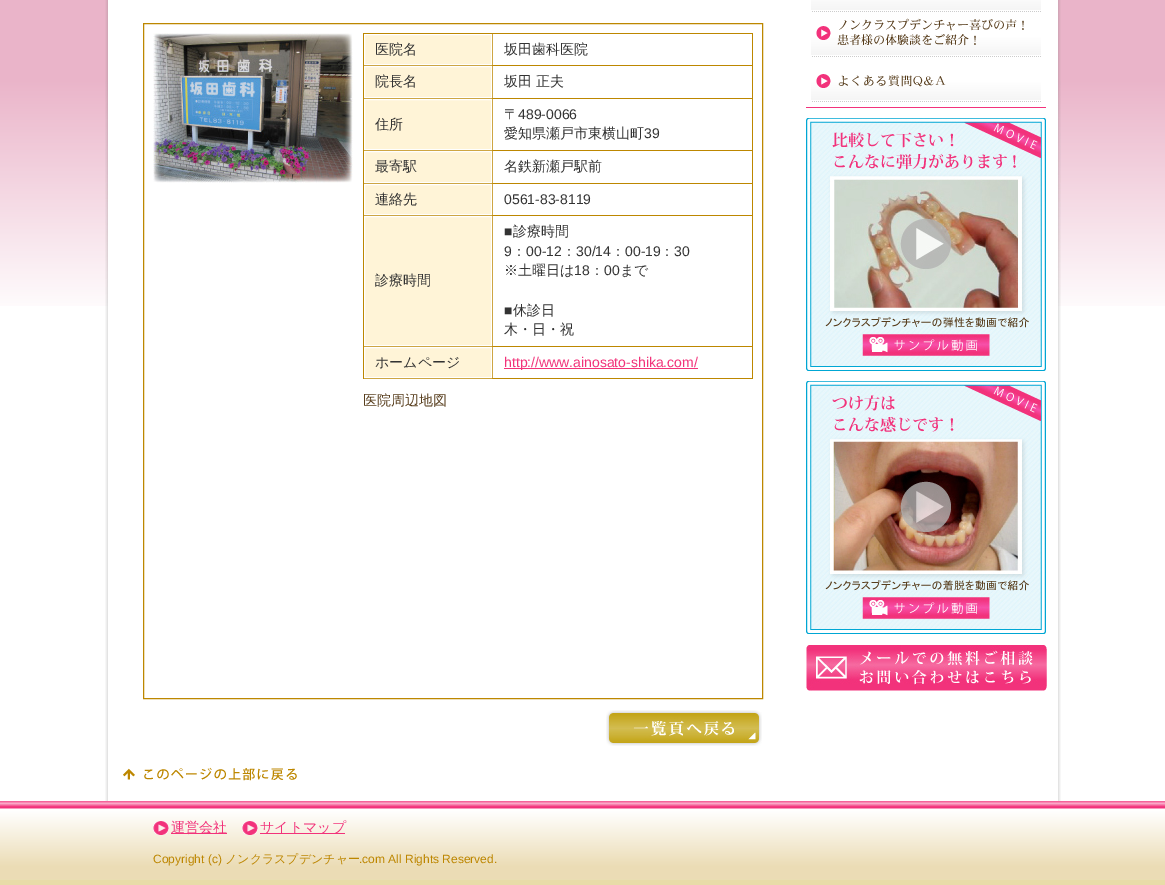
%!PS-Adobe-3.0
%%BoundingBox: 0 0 1165 885
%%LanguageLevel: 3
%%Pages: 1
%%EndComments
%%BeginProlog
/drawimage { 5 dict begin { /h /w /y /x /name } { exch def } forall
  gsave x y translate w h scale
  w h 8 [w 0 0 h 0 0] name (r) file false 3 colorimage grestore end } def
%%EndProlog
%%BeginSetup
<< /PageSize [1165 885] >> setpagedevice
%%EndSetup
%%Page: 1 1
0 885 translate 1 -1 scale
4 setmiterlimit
1 setgray
0 0 1165 885 rectfill
(images/1.raw) 0 0 1165 306 drawimage
(images/2.raw) 105 306 956 495 drawimage
(images/3.raw) 105 0 956 306 drawimage
0.741 0.529 0 setrgbcolor
143.5 23.5 619 675 rectstroke
(images/4.raw) 153 33 200 150 drawimage
363 33 390 346 rectfill
1 0.957 0.843 setrgbcolor
newpath 364.5 34.5 moveto 491.5 34.5 lineto 491.5 64.5 lineto 364.5 64.5 lineto closepath gsave fill grestore
1 setgray
stroke
493 34 259 31 rectfill
1 0.957 0.843 setrgbcolor
newpath 364.5 66.5 moveto 491.5 66.5 lineto 491.5 97.5 lineto 364.5 97.5 lineto closepath gsave fill grestore
1 setgray
stroke
493 66 259 32 rectfill
1 0.957 0.843 setrgbcolor
newpath 364.5 99.5 moveto 491.5 99.5 lineto 491.5 149.5 lineto 364.5 149.5 lineto closepath gsave fill grestore
1 setgray
stroke
493 99 259 51 rectfill
1 0.957 0.843 setrgbcolor
newpath 364.5 151.5 moveto 491.5 151.5 lineto 491.5 182.5 lineto 364.5 182.5 lineto closepath gsave fill grestore
1 setgray
stroke
493 151 259 32 rectfill
1 0.957 0.843 setrgbcolor
newpath 364.5 184.5 moveto 491.5 184.5 lineto 491.5 214.5 lineto 364.5 214.5 lineto closepath gsave fill grestore
1 setgray
stroke
493 184 259 31 rectfill
1 0.957 0.843 setrgbcolor
newpath 364.5 216.5 moveto 491.5 216.5 lineto 491.5 345.5 lineto 364.5 345.5 lineto closepath gsave fill grestore
1 setgray
stroke
493 216 259 130 rectfill
1 0.957 0.843 setrgbcolor
newpath 364.5 347.5 moveto 491.5 347.5 lineto 491.5 377.5 lineto 364.5 377.5 lineto closepath gsave fill grestore
1 setgray
stroke
493 347 259 31 rectfill
0.949 0.196 0.478 setrgbcolor
504 368 194 1 rectfill
(images/5.raw) 606 710 156 36 drawimage
0.949 0.196 0.482 setrgbcolor
806 107 240 1 rectfill
(images/6.raw) 811 0 230 12 drawimage
(images/7.raw) 811 18 230 39 drawimage
(images/8.raw) 811 74 230 28 drawimage
(images/9.raw) 806 118 240 253 drawimage
(images/10.raw) 806 381 240 253 drawimage
(images/11.raw) 806 645 241 46 drawimage
(images/12.raw) 123 767 174 14 drawimage
0.91 0.863 0.659 setrgbcolor
0 880 1165 5 rectfill
(images/13.raw) 0 801 1165 79 drawimage
(images/14.raw) 153 821 16 14 drawimage
0.949 0.196 0.478 setrgbcolor
171 833 56 1 rectfill
(images/14.raw) 242 821 16 14 drawimage
260 833 85 1 rectfill
/WenQuanYiZenHei-Medium [14 0 0 -14 0 0] selectfont
0.2 setgray
375 54 moveto (医院名) show
504 54 moveto (坂田歯科医院) show
375 86 moveto (院長名) show
504 86 moveto (坂田 正夫) show
375 129 moveto (住所) show
504 119 moveto (〒) show
/LiberationSans-Regular [14 0 0 -14 0 0] selectfont
518 119 moveto (489-0066) show
/WenQuanYiZenHei-Medium [14 0 0 -14 0 0] selectfont
504 138 moveto (愛知県瀬戸市東横山町) show
/LiberationSans-Regular [14 0 0 -14 0 0] selectfont
644 138 moveto (39) show
/WenQuanYiZenHei-Medium [14 0 0 -14 0 0] selectfont
375 171 moveto (最寄駅) show
504 171 moveto (名鉄新瀬戸駅前) show
375 204 moveto (連絡先) show
/LiberationSans-Regular [14 0 0 -14 0 0] selectfont
504 204 moveto (0561-83-8119) show
/WenQuanYiZenHei-Medium [14 0 0 -14 0 0] selectfont
375 285 moveto (診療時間) show
/LiberationSans-Regular [14 0 0 -14 0 0] selectfont
504 236 moveto (■) show
/WenQuanYiZenHei-Medium [14 0 0 -14 0 0] selectfont
513 236 moveto (診療時間) show
/LiberationSans-Regular [14 0 0 -14 0 0] selectfont
504 256 moveto (9) show
/WenQuanYiZenHei-Medium [14 0 0 -14 0 0] selectfont
512 256 moveto (：) show
/LiberationSans-Regular [14 0 0 -14 0 0] selectfont
526 256 moveto (00-12) show
/WenQuanYiZenHei-Medium [14 0 0 -14 0 0] selectfont
562 256 moveto (：) show
/LiberationSans-Regular [14 0 0 -14 0 0] selectfont
576 256 moveto (30/14) show
/WenQuanYiZenHei-Medium [14 0 0 -14 0 0] selectfont
611 256 moveto (：) show
/LiberationSans-Regular [14 0 0 -14 0 0] selectfont
625 256 moveto (00-19) show
/WenQuanYiZenHei-Medium [14 0 0 -14 0 0] selectfont
660 256 moveto (：) show
/LiberationSans-Regular [14 0 0 -14 0 0] selectfont
674 256 moveto (30) show
/WenQuanYiZenHei-Medium [14 0 0 -14 0 0] selectfont
504 275 moveto (※土曜日は) show
/LiberationSans-Regular [14 0 0 -14 0 0] selectfont
574 275 moveto (18) show
/WenQuanYiZenHei-Medium [14 0 0 -14 0 0] selectfont
590 275 moveto (：) show
/LiberationSans-Regular [14 0 0 -14 0 0] selectfont
604 275 moveto (00) show
/WenQuanYiZenHei-Medium [14 0 0 -14 0 0] selectfont
620 275 moveto (まで) show
/LiberationSans-Regular [14 0 0 -14 0 0] selectfont
504 315 moveto (■) show
/WenQuanYiZenHei-Medium [14 0 0 -14 0 0] selectfont
513 315 moveto (休診日) show
504 334 moveto (木・日・祝) show
375 367 moveto (ホームページ) show
/LiberationSans-Regular [14 0 0 -14 0 0] selectfont
0.949 0.196 0.478 setrgbcolor
504 367 moveto (http://www.ainosato-shika.com/) show
/WenQuanYiZenHei-Medium [14 0 0 -14 0 0] selectfont
0.345 0.243 0.114 setrgbcolor
363 405 moveto (医院周辺地図) show
0.949 0.196 0.478 setrgbcolor
171 832 moveto (運営会社) show
260 832 moveto (サイトマップ) show
/LiberationSans-Regular [12 0 0 -12 0 0] selectfont
0.741 0.525 0 setrgbcolor
153 863 moveto (Copyright \(c\)) show
/WenQuanYiZenHei-Medium [12 0 0 -12 0 0] selectfont
225 863 moveto (ノンクラスプデンチャー) show
/LiberationSans-Regular [12 0 0 -12 0 0] selectfont
359 863 moveto (.com All Rights Reserved.) show
showpage
%%EOF
